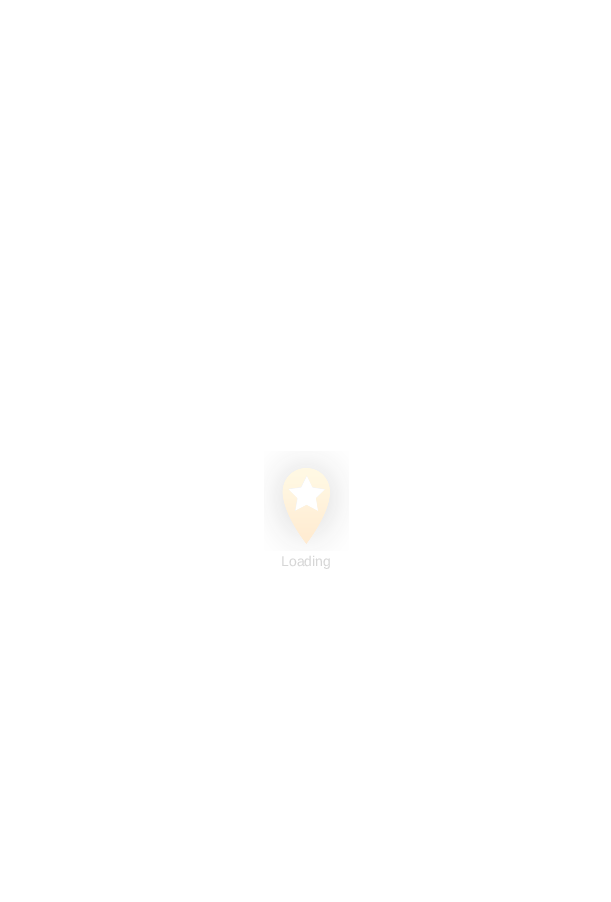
%!PS-Adobe-3.0
%%BoundingBox: 0 0 611 902
%%LanguageLevel: 3
%%Pages: 1
%%EndComments
%%BeginProlog
/drawimage { 5 dict begin { /h /w /y /x /name } { exch def } forall
  gsave x y translate w h scale
  w h 8 [w 0 0 h 0 0] name (r) file false 3 colorimage grestore end } def
%%EndProlog
%%BeginSetup
<< /PageSize [611 902] >> setpagedevice
%%EndSetup
%%Page: 1 1
0 902 translate 1 -1 scale
4 setmiterlimit
1 setgray
0 0 611 902 rectfill
(images/1.raw) 264 451 85 100 drawimage
/LiberationSans-Regular [14 0 0 -14 0 0] selectfont
0.839 setgray
281 566 moveto (Loading) show
showpage
%%EOF
